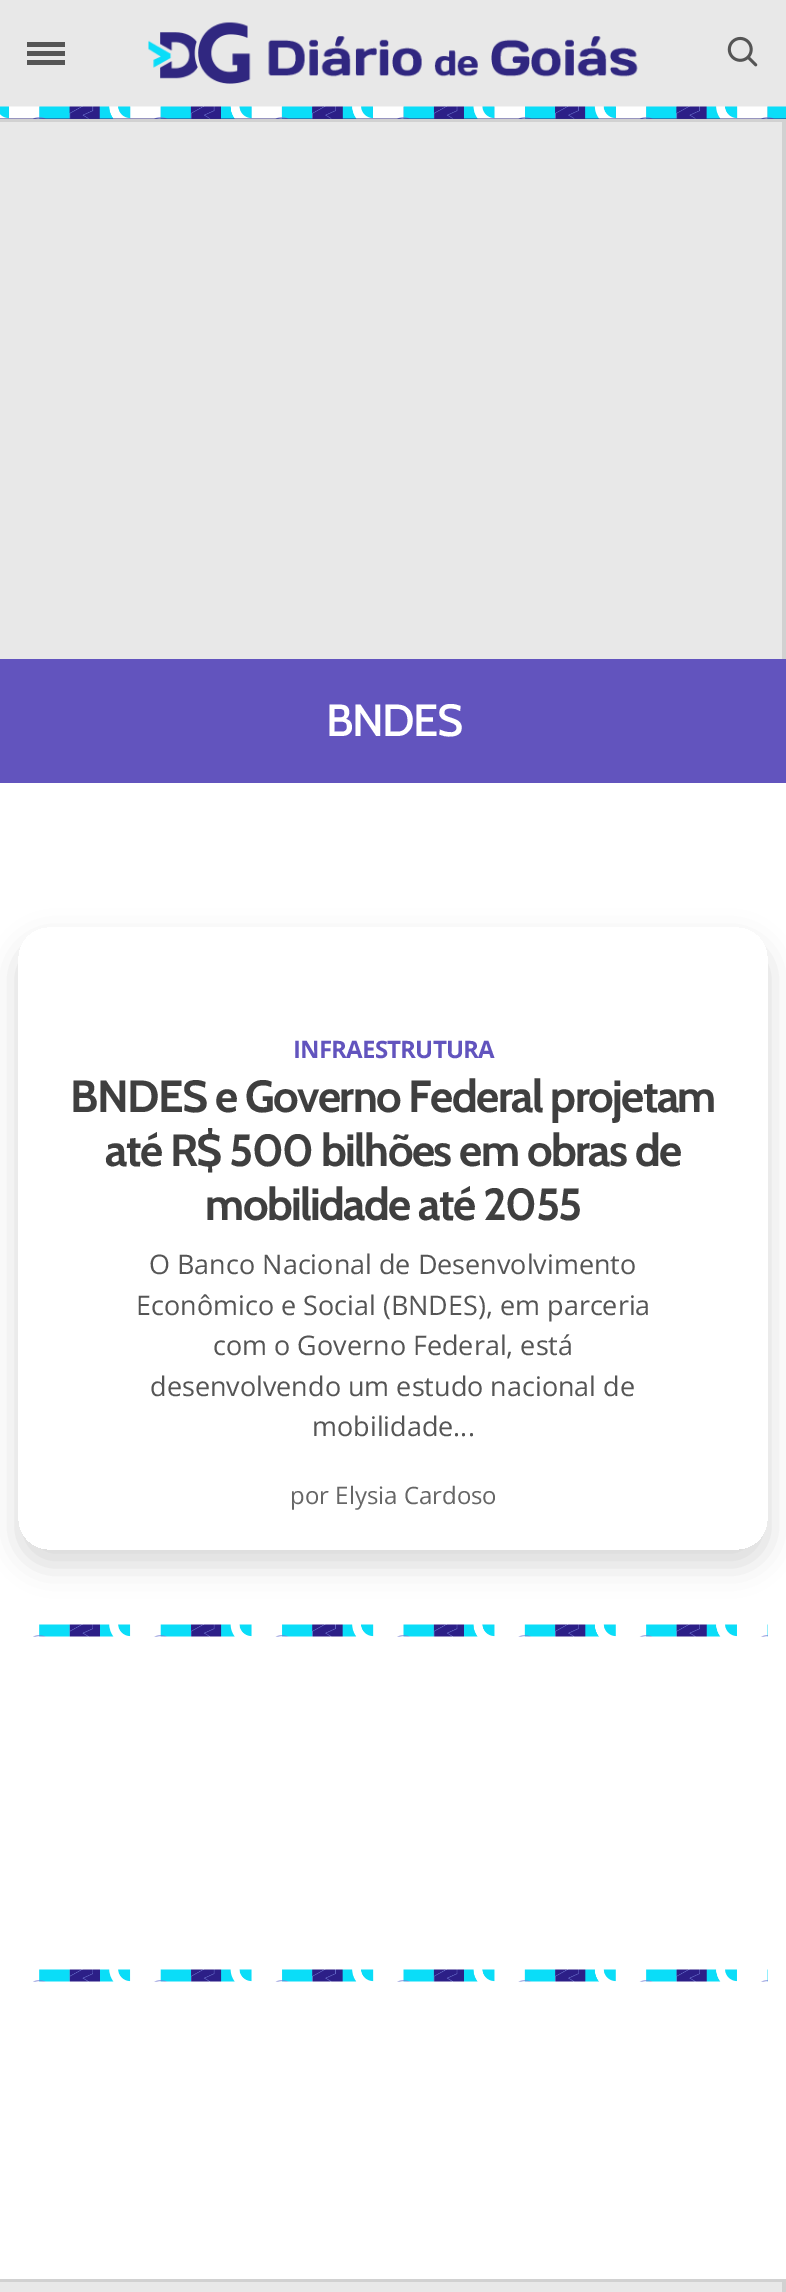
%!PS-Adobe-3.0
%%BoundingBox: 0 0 786 2292
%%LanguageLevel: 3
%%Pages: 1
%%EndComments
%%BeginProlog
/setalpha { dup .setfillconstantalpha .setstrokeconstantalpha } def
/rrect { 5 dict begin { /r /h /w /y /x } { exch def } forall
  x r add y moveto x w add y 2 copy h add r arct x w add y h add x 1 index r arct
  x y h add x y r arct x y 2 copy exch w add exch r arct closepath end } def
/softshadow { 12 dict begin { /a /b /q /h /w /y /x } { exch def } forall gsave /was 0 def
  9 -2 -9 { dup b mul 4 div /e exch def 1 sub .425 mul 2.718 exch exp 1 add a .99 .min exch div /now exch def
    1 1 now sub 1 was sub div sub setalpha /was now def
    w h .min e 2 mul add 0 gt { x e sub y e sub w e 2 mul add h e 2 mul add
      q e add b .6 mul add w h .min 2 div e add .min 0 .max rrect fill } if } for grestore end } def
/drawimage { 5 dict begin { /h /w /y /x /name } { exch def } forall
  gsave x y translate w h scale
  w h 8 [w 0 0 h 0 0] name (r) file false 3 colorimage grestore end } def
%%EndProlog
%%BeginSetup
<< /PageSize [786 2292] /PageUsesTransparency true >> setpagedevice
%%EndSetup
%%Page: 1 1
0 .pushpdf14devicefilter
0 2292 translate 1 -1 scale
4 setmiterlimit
1 setgray
0 0 786 2292 rectfill
0.91 setgray
0 0 786 107 rectfill
0.333 setgray
27 51 38 5 rectfill
27 42 38 5 rectfill
27 60 38 5 rectfill
(images/1.raw) 148 22 490 62 drawimage
(images/2.raw) 727 36 31 31 drawimage
0.192 0.169 0.494 setrgbcolor
0 107 786 12 rectfill
(images/3.raw) 0 106 786 13 drawimage
0.91 setgray
0 122 782 537 rectfill
gsave
0 119 786 540 rectclip
0.82 setgray
newpath -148 -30 moveto 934 -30 lineto 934 807 lineto -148 807 lineto closepath -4 122 moveto 782 122 lineto 782 662 lineto -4 662 lineto closepath eofill
grestore
0.384 0.329 0.745 setrgbcolor
0 659 786 124 rectfill
gsave
newpath 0 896 moveto 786 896 lineto 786 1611 lineto 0 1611 lineto closepath 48 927 moveto 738 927 lineto 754.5 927 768 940.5 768 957 curveto 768 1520 lineto 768 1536.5 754.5 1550 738 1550 curveto 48 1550 lineto 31.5 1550 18 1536.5 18 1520 curveto 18 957 lineto 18 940.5 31.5 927 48 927 curveto closepath eoclip newpath
0 setgray
18 942 750 623 30 15 0.15 softshadow
grestore
(images/4.raw) 33 1624 735 13 drawimage
(images/4.raw) 33 1969 735 13 drawimage
0.91 setgray
0 2282 782 10 rectfill
gsave
0 2279 786 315 rectclip
0.82 setgray
newpath -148 2130 moveto 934 2130 lineto 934 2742 lineto -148 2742 lineto closepath -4 2282 moveto 782 2282 lineto 782 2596 lineto -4 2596 lineto closepath eofill
grestore
/Cabin-Medium [45 0 0 -45 0 0] selectfont
1 setgray
326 736 moveto -1.5 0 (BNDES) ashow
/OpenSans-Bold [24 0 0 -24 0 0] selectfont
0.384 0.329 0.745 setrgbcolor
293 1058 moveto -0.8 0 (INFRAESTRUTURA) ashow
/Cabin-Bold [45 0 0 -45 0 0] selectfont
0.247 setgray
70 1112 moveto -1.6 0 (BNDES e Governo Federal projetam) ashow
105 1166 moveto -1.6 0 (até R$ 500 bilhões em obras de) ashow
205 1220 moveto -1.6 0 (mobilidade até 2055) ashow
/OpenSans-Regular [27 0 0 -27 0 0] selectfont
0.333 setgray
149 1274 moveto (O Banco Nacional de Desenvolvimento) show
136 1315 moveto (Econômico e Social \(BNDES\), em parceria) show
213 1355 moveto (com o Governo Federal, está) show
150 1396 moveto (desenvolvendo um estudo nacional de) show
312 1436 moveto (mobilidade...) show
/OpenSans-Regular [24 0 0 -24 0 0] selectfont
0.4 setgray
290 1504 moveto (por Elysia Cardoso) show
.poppdf14devicefilter showpage
%%EOF
